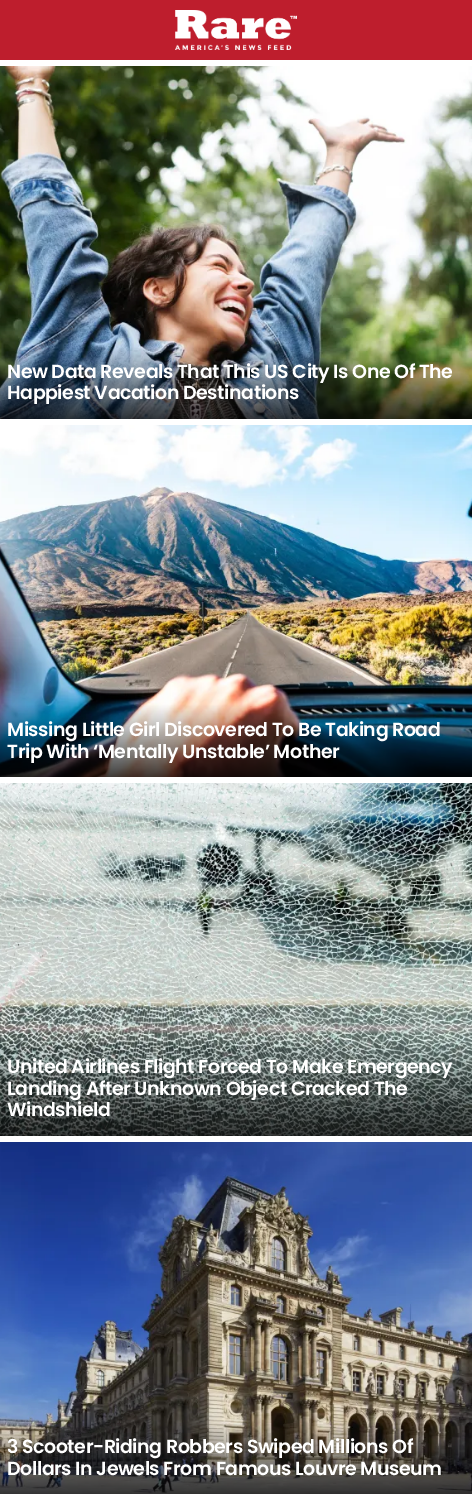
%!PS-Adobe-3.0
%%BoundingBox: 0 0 472 1494
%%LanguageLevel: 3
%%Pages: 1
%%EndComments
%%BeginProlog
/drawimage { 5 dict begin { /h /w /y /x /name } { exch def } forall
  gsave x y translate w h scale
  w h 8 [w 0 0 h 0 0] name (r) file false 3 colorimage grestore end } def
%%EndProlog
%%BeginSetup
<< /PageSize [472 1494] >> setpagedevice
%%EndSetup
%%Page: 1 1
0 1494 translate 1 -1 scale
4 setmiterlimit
1 setgray
0 0 472 1494 rectfill
0.745 0.118 0.176 setrgbcolor
0 0 472 60 rectfill
(images/1.raw) 175 10 122 40 drawimage
(images/2.raw) 0 66 472 353 drawimage
(images/3.raw) 0 425 472 352 drawimage
(images/4.raw) 0 783 472 353 drawimage
(images/5.raw) 0 1142 472 352 drawimage
/Poppins-SemiBold [19 0 0 -19 0 0] selectfont
1 setgray
7 378 moveto -0.45 0 (New Data Reveals That This US City Is One Of The) ashow
7 399 moveto -0.45 0 (Happiest Vacation Destinations) ashow
7 736 moveto -0.45 0 (Missing Little Girl Discovered To Be Taking Road) ashow
7 758 moveto -0.45 0 (Trip With ‘Mentally Unstable’ Mother) ashow
7 1073 moveto -0.45 0 (United Airlines Flight Forced To Make Emergency) ashow
7 1095 moveto -0.45 0 (Landing After Unknown Object Cracked The) ashow
7 1116 moveto -0.45 0 (Windshield) ashow
7 1453 moveto -0.45 0 (3 Scooter-Riding Robbers Swiped Millions Of) ashow
7 1475 moveto -0.45 0 (Dollars In Jewels From Famous Louvre Museum) ashow
showpage
%%EOF
